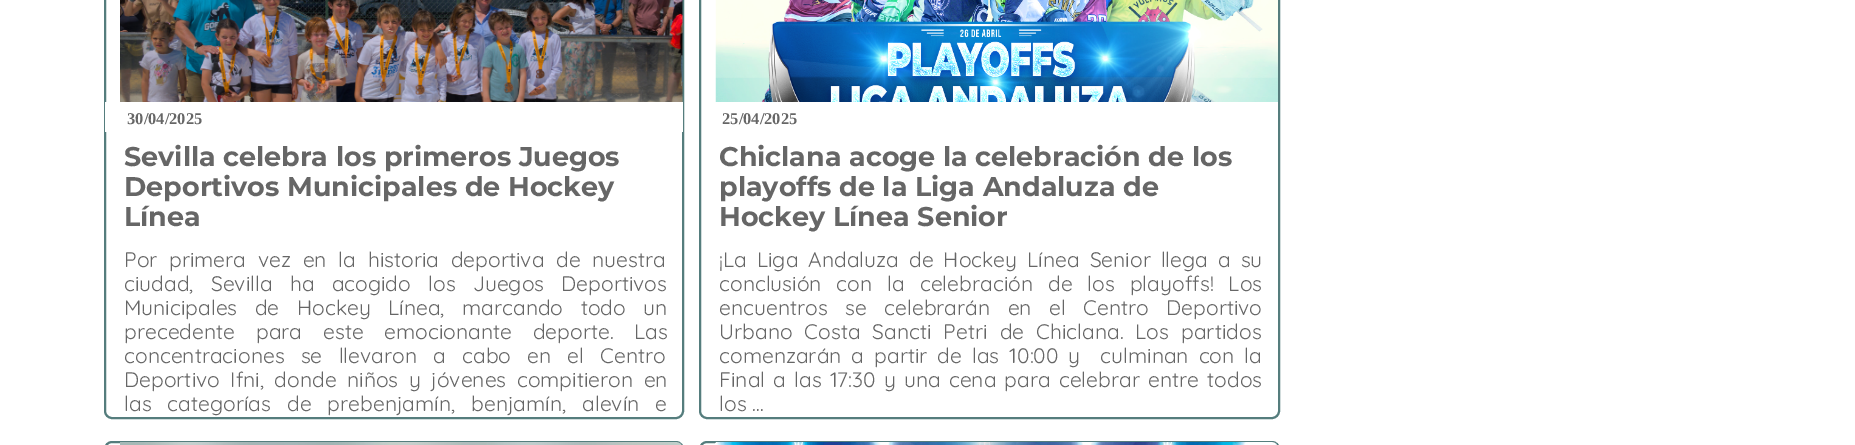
%!PS-Adobe-3.0
%%BoundingBox: 0 0 1855 445
%%LanguageLevel: 3
%%Pages: 1
%%EndComments
%%BeginProlog
/rrect { 5 dict begin { /r /h /w /y /x } { exch def } forall
  x r add y moveto x w add y 2 copy h add r arct x w add y h add x 1 index r arct
  x y h add x y r arct x y 2 copy exch w add exch r arct closepath end } def
/drawimage { 5 dict begin { /h /w /y /x /name } { exch def } forall
  gsave x y translate w h scale
  w h 8 [w 0 0 h 0 0] name (r) file false 3 colorimage grestore end } def
%%EndProlog
%%BeginSetup
<< /PageSize [1855 445] >> setpagedevice
%%EndSetup
%%Page: 1 1
0 445 translate 1 -1 scale
4 setmiterlimit
1 setgray
0 0 1855 445 rectfill
0.333 0.49 0.49 setrgbcolor
2 setlinewidth
105 -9 578 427 7 rrect stroke
(images/1.raw) 120 0 563 102 drawimage
1 setgray
105 102 578 30 rectfill
0.333 0.49 0.49 setrgbcolor
700 -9 579 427 7 rrect stroke
(images/2.raw) 715 0 563 102 drawimage
105 442 578 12 7 rrect stroke
(images/3.raw) 120 442 562 3 drawimage
700 442 579 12 7 rrect stroke
(images/4.raw) 715 442 562 3 drawimage
/LiberationSerif-Bold [16.5 0 0 -16.5 0 0] selectfont
0.4 setgray
127 124 moveto (30/04/2025) show
/Montserrat-Bold [27 0 0 -27 0 0] selectfont
124 166 moveto (Sevilla celebra los primeros Juegos) show
124 196 moveto (Deportivos Municipales de Hockey) show
124 226 moveto (Línea) show
/Quicksand-Regular [21 0 0 -21 0 0] selectfont
124 267 moveto 6 0 32 (Por primera vez en la historia deportiva de nuestra) widthshow
124 291 moveto 11.5 0 32 (ciudad, Sevilla ha acogido los Juegos Deportivos) widthshow
124 315 moveto 11.75 0 32 (Municipales de Hockey Línea, marcando todo un) widthshow
124 339 moveto 15 0 32 (precedente para este emocionante deporte. Las) widthshow
124 363 moveto 10.5 0 32 (concentraciones se llevaron a cabo en el Centro) widthshow
124 387 moveto 4.75 0 32 (Deportivo Ifni, donde niños y jóvenes compitieron en) widthshow
124 411 moveto 10.25 0 32 (las categorías de prebenjamín, benjamín, alevín e) widthshow
/LiberationSerif-Bold [16.5 0 0 -16.5 0 0] selectfont
722 124 moveto (25/04/2025) show
/Montserrat-Bold [27 0 0 -27 0 0] selectfont
719 166 moveto (Chiclana acoge la celebración de los) show
719 196 moveto (playoffs de la Liga Andaluza de) show
719 226 moveto (Hockey Línea Senior) show
/Quicksand-Regular [21 0 0 -21 0 0] selectfont
719 267 moveto 4.25 0 32 (¡La Liga Andaluza de Hockey Línea Senior llega a su) widthshow
719 291 moveto 9.25 0 32 (conclusión con la celebración de los playoffs! Los) widthshow
719 315 moveto 11.75 0 32 (encuentros se celebrarán en el Centro Deportivo) widthshow
719 339 moveto 6.25 0 32 (Urbano Costa Sancti Petri de Chiclana. Los partidos) widthshow
719 363 moveto 4.25 0 32 (comenzarán a partir de las 10:00 y  culminan con la) widthshow
719 387 moveto 2.4 0 32 (Final a las 17:30 y una cena para celebrar entre todos) widthshow
719 411 moveto (los …) show
showpage
%%EOF
